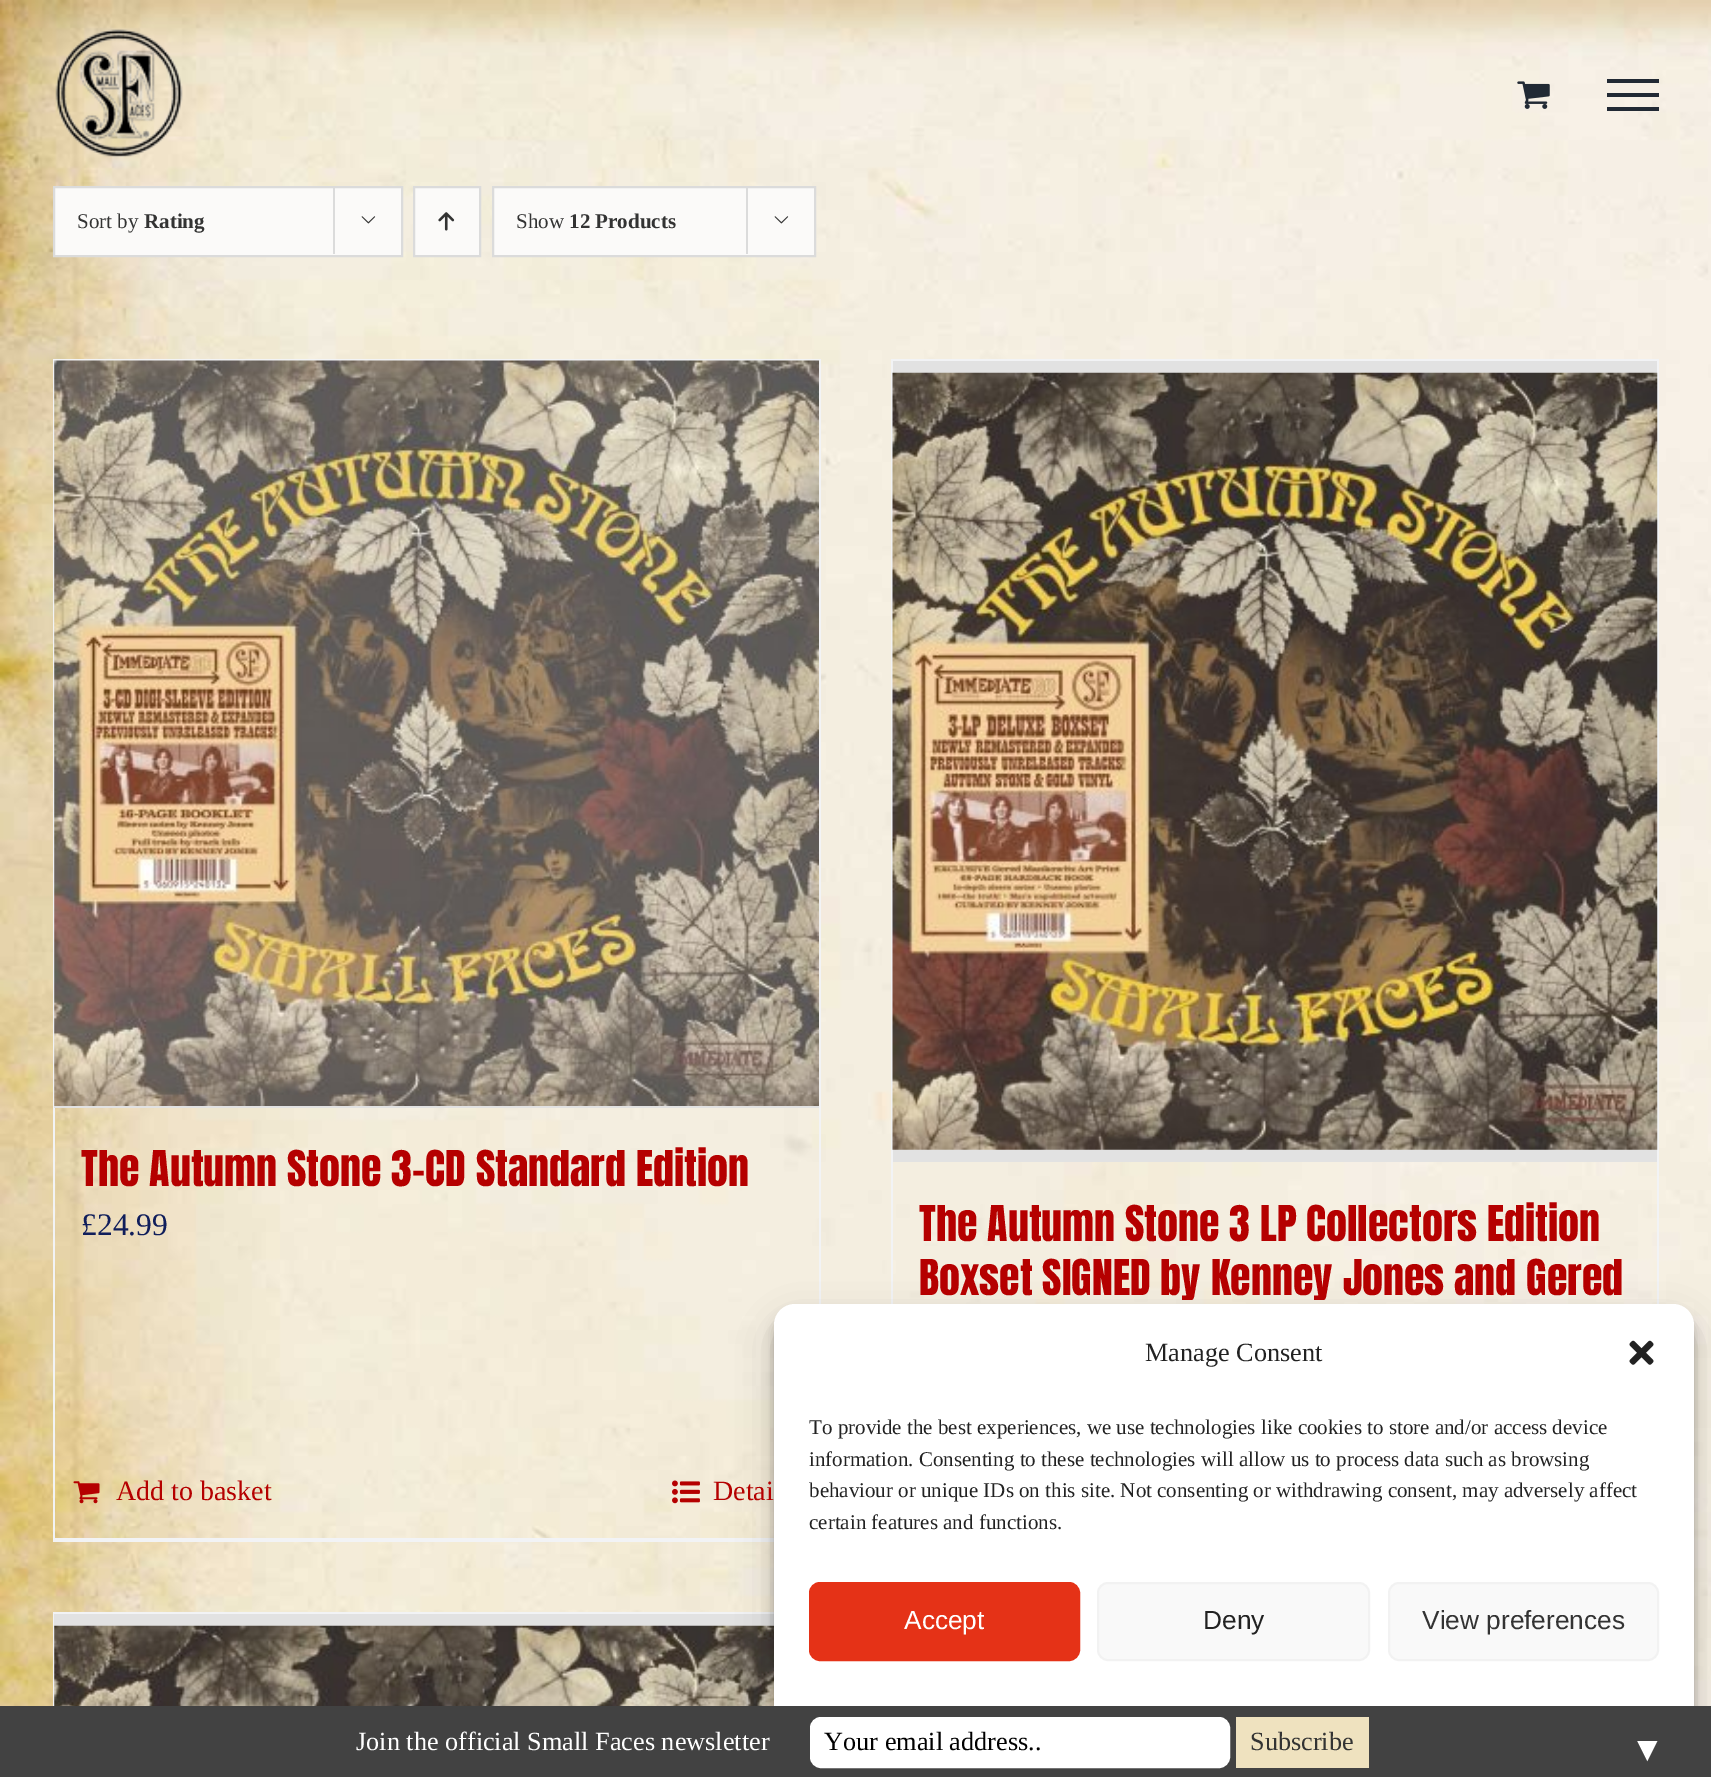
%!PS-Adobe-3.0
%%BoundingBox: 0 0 1711 1777
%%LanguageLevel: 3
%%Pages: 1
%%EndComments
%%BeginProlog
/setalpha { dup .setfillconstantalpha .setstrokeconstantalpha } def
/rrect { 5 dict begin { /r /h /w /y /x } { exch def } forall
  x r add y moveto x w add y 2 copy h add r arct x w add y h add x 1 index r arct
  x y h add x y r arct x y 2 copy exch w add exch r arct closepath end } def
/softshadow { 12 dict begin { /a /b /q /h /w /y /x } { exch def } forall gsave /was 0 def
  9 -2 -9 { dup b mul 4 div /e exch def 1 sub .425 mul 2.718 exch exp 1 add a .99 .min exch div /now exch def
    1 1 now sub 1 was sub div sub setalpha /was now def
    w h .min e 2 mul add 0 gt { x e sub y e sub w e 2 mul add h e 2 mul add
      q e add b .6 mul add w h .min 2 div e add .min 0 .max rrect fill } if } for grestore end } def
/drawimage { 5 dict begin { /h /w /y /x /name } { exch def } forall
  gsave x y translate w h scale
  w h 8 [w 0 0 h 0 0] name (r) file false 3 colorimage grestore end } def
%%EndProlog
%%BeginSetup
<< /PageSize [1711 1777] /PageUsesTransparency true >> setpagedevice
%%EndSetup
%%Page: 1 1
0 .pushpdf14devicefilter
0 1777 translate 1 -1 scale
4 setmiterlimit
1 setgray
0 0 1711 1777 rectfill
(images/1.raw) 0 136 1711 1570 drawimage
(images/2.raw) 0 0 1711 137 drawimage
(images/3.raw) 55 29 128 128 drawimage
(images/4.raw) 1517 81 33 28 drawimage
0.129 0.161 0.204 setrgbcolor
1607 79 52 4 rectfill
1607 93 52 4 rectfill
1607 107 52 4 rectfill
0.984 0.98 0.976 setrgbcolor
newpath 54 187 moveto 402 187 lineto 402 256 lineto 54 256 lineto closepath gsave fill grestore
0.859 setgray
2 setlinewidth
stroke
333 186 2 68 rectfill
(images/5.raw) 361 216 15 8 drawimage
0.984 0.98 0.976 setrgbcolor
newpath 414 187 moveto 480 187 lineto 480 256 lineto 414 256 lineto closepath gsave fill grestore
0.859 setgray
stroke
(images/6.raw) 438 212 17 19 drawimage
0.984 0.98 0.976 setrgbcolor
newpath 493 187 moveto 815 187 lineto 815 256 lineto 493 256 lineto closepath gsave fill grestore
0.859 setgray
stroke
746 186 2 68 rectfill
(images/5.raw) 774 216 15 8 drawimage
0.949 0.953 0.961 setrgbcolor
53 359 768 2 rectfill
819 359 2 945 rectfill
53 1538 721 4 rectfill
53 359 2 1183 rectfill
0.886 setgray
54 361 765 747 rectfill
(images/7.raw) 54 360 765 746 drawimage
(images/8.raw) 73 1481 27 23 drawimage
(images/9.raw) 672 1480 28 24 drawimage
0.949 0.953 0.961 setrgbcolor
891 359 768 2 rectfill
1657 359 2 945 rectfill
891 359 2 945 rectfill
0.886 setgray
893 361 764 801 rectfill
(images/10.raw) 892 372 766 778 drawimage
0.949 0.953 0.961 setrgbcolor
53 1612 721 2 rectfill
53 1612 2 94 rectfill
0.886 setgray
54 1614 720 92 rectfill
(images/11.raw) 54 1625 720 81 drawimage
0 setgray
774 1314 920 457 21 5 0.23 softshadow
774 1321 920 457 21 17.5 0.19 softshadow
1 setgray
774 1304 920 457 21 rrect fill
(images/12.raw) 1629 1340 25 25 drawimage
0.898 0.196 0.09 setrgbcolor
810 1583 269 77 10 rrect gsave fill grestore
stroke
0.976 setgray
1098 1583 271 77 10 rrect gsave fill grestore
0.949 setgray
stroke
0.976 setgray
1389 1583 269 77 10 rrect gsave fill grestore
0.949 setgray
stroke
0.259 setgray
0 1706 1711 71 rectfill
1 setgray
811 1718 418 49 10 rrect gsave fill grestore
stroke
0.937 0.886 0.749 setrgbcolor
1236 1717 133 51 rectfill
/LiberationSerif-Regular [21 0 0 -21 0 0] selectfont
0.2 setgray
77 228 moveto (Sort by) show
/LiberationSerif-Bold [21 0 0 -21 0 0] selectfont
144 228 moveto (Rating) show
/LiberationSerif-Regular [21 0 0 -21 0 0] selectfont
516 228 moveto (Show) show
/LiberationSerif-Bold [21 0 0 -21 0 0] selectfont
569 228 moveto (12 Products) show
/Anton-Regular [42 0 0 -42 0 0] selectfont
0.71 0 0 setrgbcolor
81 1186 moveto (The Autumn Stone 3-CD Standard Edition) show
/LiberationSerif-Regular [31.5 0 0 -31.5 0 0] selectfont
0.063 0.118 0.357 setrgbcolor
81 1235 moveto (£24.99) show
/LiberationSerif-Regular [28 0 0 -28 0 0] selectfont
0.71 0 0 setrgbcolor
116 1500 moveto (Add to basket) show
713 1500 moveto (Detai) show
/Anton-Regular [42 0 0 -42 0 0] selectfont
919 1241 moveto (The Autumn Stone 3 LP Collectors Edition) show
919 1295 moveto (Boxset SIGNED by Kenney Jones and Gered) show
/LiberationSerif-Regular [26.25 0 0 -26.25 0 0] selectfont
0.133 setgray
1145 1361 moveto (Manage Consent) show
gsave
809 1412 850 135 rectclip
/LiberationSerif-Regular [21 0 0 -21 0 0] selectfont
809 1434 moveto (To provide the best experiences, we use technologies like cookies to store and/or access device) show
grestore
/LiberationSerif-Regular [21 0 0 -21 0 0] selectfont
809 1466 moveto (information. Consenting to these technologies will allow us to process data such as browsing) show
809 1497 moveto (behaviour or unique IDs on this site. Not consenting or withdrawing consent, may adversely affect) show
809 1529 moveto (certain features and functions.) show
/LiberationSans-Regular [26.25 0 0 -26.25 0 0] selectfont
1 setgray
904 1629 moveto (Accept) show
0.133 setgray
1203 1629 moveto (Deny) show
0.2 setgray
1422 1629 moveto (View preferences) show
/LiberationSerif-Regular [26.25 0 0 -26.25 0 0] selectfont
1 setgray
356 1750 moveto (Join the official Small Faces newsletter) show
0 setgray
824 1750 moveto (Your email address..) show
0.2 setgray
1250 1750 moveto (Subscribe) show
/LiberationSerif-Regular [35 0 0 -35 0 0] selectfont
1 setgray
1630 1761 moveto (▼) show
.poppdf14devicefilter showpage
%%EOF
